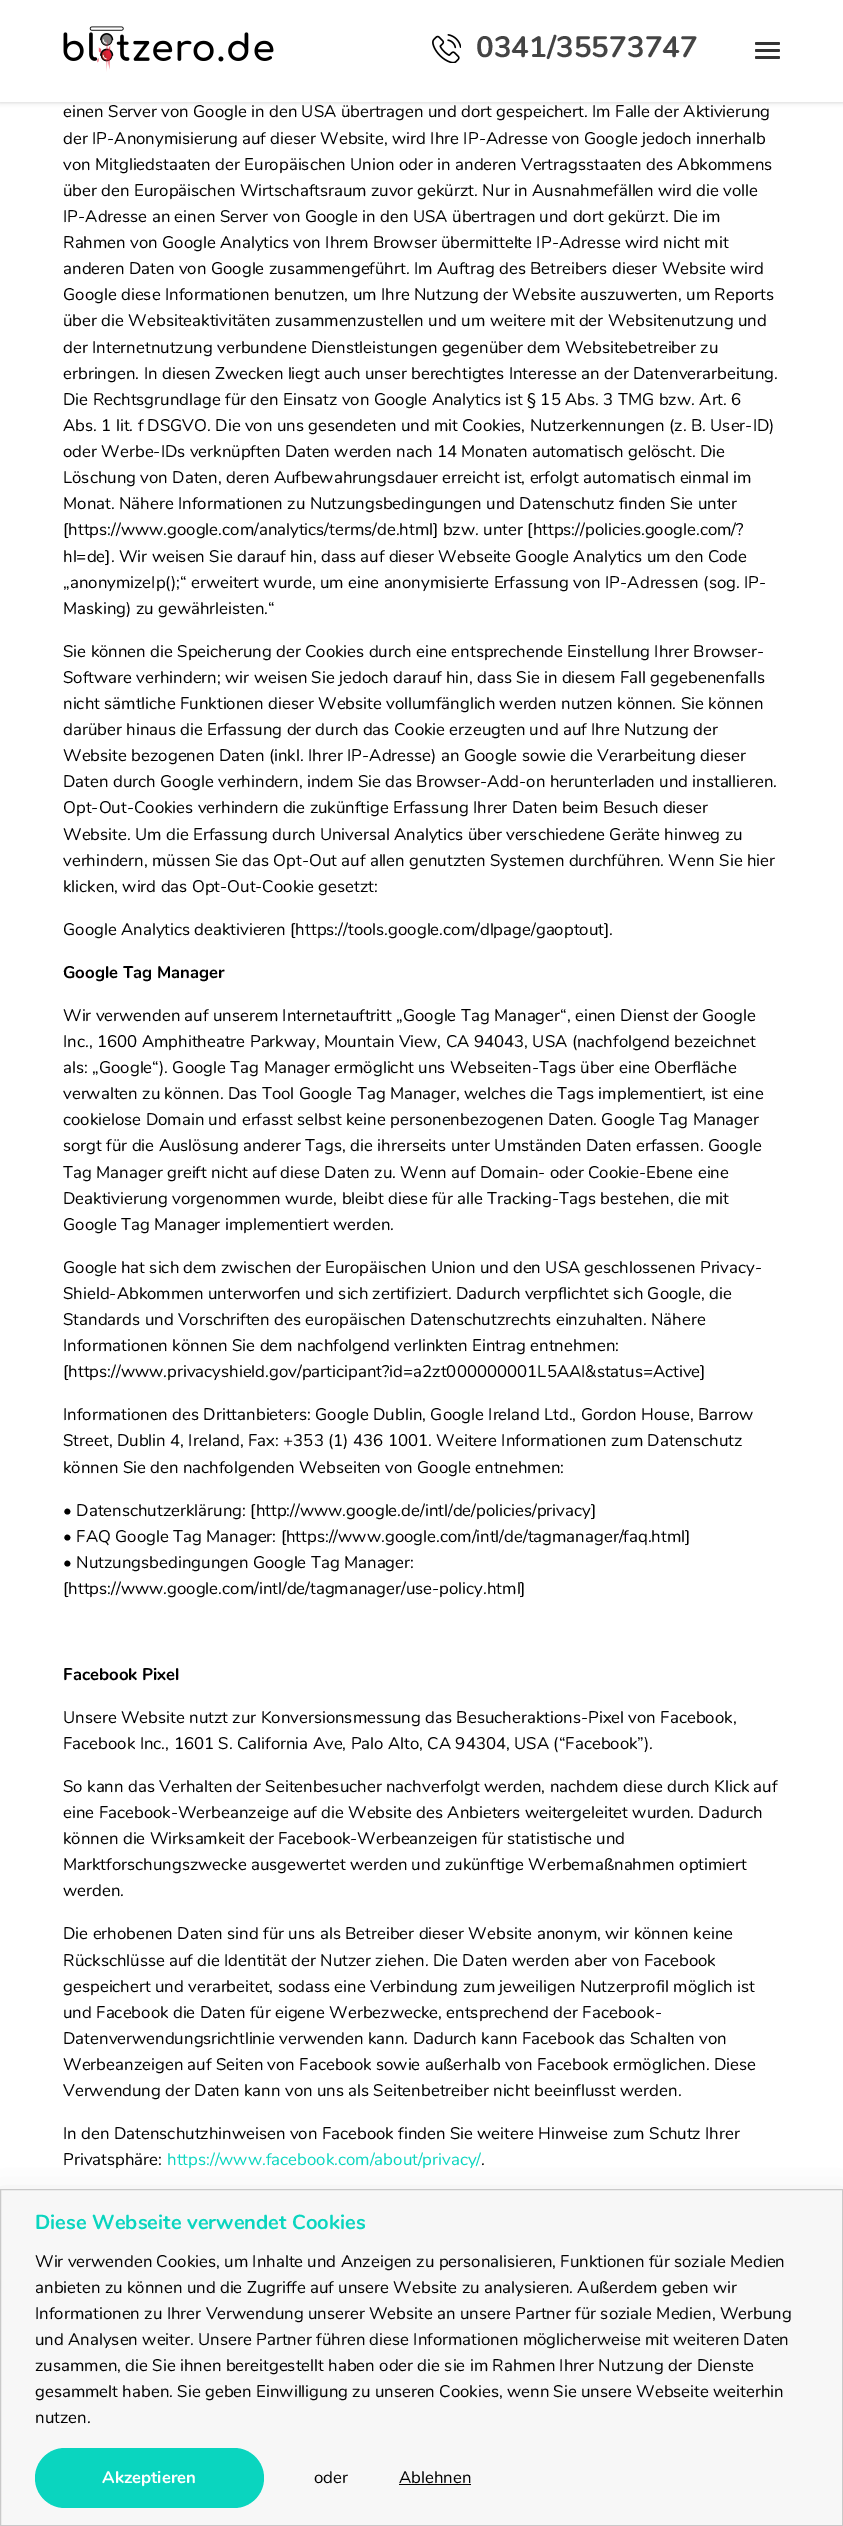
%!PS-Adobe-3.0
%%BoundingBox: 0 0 843 2526
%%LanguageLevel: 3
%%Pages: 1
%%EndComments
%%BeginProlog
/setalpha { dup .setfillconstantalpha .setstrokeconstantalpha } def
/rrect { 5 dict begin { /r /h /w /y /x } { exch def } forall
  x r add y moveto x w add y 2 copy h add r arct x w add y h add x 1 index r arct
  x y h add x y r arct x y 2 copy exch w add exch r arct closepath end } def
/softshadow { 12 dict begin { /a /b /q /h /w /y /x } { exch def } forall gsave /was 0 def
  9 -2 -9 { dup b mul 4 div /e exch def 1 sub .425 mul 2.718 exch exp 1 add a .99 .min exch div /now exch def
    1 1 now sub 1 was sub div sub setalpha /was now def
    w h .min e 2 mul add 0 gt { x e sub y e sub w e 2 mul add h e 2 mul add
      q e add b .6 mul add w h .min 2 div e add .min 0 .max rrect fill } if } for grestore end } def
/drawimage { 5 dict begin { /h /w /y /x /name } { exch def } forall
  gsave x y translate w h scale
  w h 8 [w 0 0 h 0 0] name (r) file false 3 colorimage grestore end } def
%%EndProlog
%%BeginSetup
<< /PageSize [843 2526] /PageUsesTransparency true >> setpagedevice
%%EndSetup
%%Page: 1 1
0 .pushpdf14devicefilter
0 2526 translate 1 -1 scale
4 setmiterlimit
1 setgray
0 0 843 2526 rectfill
0 setgray
0 0 843 102 0 2.5 0.2 softshadow
1 setgray
0 0 843 102 rectfill
(images/1.raw) 63 26 211 46 drawimage
(images/2.raw) 432 34 29 29 drawimage
0.2 setgray
755 42 25 3 1.5 rrect fill
755 49 25 3 1.5 rrect fill
755 56 25 3 1.5 rrect fill
0 setgray
0 2206 843 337 0 17 0.2 softshadow
0.969 setgray
newpath 0.5 2189.5 moveto 842.5 2189.5 lineto 842.5 2525.5 lineto 0.5 2525.5 lineto closepath gsave fill grestore
0.788 setgray
stroke
0.039 0.835 0.749 setrgbcolor
35 2448 229 60 30 rrect fill
0 setgray
399 2484 72 1 rectfill
/Nunito-Bold [29.5 0 0 -29.5 0 0] selectfont
0.267 setgray
476 57 moveto (0341/35573747) show
/Nunito-Regular [16.85 0 0 -16.85 0 0] selectfont
0 setgray
63 117 moveto (einen Server von Google in den USA übertragen und dort gespeichert. Im Falle der Aktivierung) show
63 144 moveto (der IP-Anonymisierung auf dieser Website, wird Ihre IP-Adresse von Google jedoch innerhalb) show
63 170 moveto (von Mitgliedstaaten der Europäischen Union oder in anderen Vertragsstaaten des Abkommens) show
63 196 moveto (über den Europäischen Wirtschaftsraum zuvor gekürzt. Nur in Ausnahmefällen wird die volle) show
63 222 moveto (IP-Adresse an einen Server von Google in den USA übertragen und dort gekürzt. Die im) show
63 248 moveto (Rahmen von Google Analytics von Ihrem Browser übermittelte IP-Adresse wird nicht mit) show
63 274 moveto (anderen Daten von Google zusammengeführt. Im Auftrag des Betreibers dieser Website wird) show
63 300 moveto (Google diese Informationen benutzen, um Ihre Nutzung der Website auszuwerten, um Reports) show
63 326 moveto (über die Websiteaktivitäten zusammenzustellen und um weitere mit der Websitenutzung und) show
63 353 moveto (der Internetnutzung verbundene Dienstleistungen gegenüber dem Websitebetreiber zu) show
63 379 moveto (erbringen. In diesen Zwecken liegt auch unser berechtigtes Interesse an der Datenverarbeitung.) show
63 405 moveto (Die Rechtsgrundlage für den Einsatz von Google Analytics ist § 15 Abs. 3 TMG bzw. Art. 6) show
63 431 moveto (Abs. 1 lit. f DSGVO. Die von uns gesendeten und mit Cookies, Nutzerkennungen \(z. B. User-ID\)) show
63 457 moveto (oder Werbe-IDs verknüpften Daten werden nach 14 Monaten automatisch gelöscht. Die) show
63 483 moveto (Löschung von Daten, deren Aufbewahrungsdauer erreicht ist, erfolgt automatisch einmal im) show
63 509 moveto (Monat. Nähere Informationen zu Nutzungsbedingungen und Datenschutz finden Sie unter) show
63 535 moveto ([https://www.google.com/analytics/terms/de.html] bzw. unter [https://policies.google.com/?) show
63 562 moveto (hl=de]. Wir weisen Sie darauf hin, dass auf dieser Webseite Google Analytics um den Code) show
63 588 moveto („anonymizeIp\(\);“ erweitert wurde, um eine anonymisierte Erfassung von IP-Adressen \(sog. IP-) show
63 614 moveto (Masking\) zu gewährleisten.“) show
63 657 moveto (Sie können die Speicherung der Cookies durch eine entsprechende Einstellung Ihrer Browser-) show
63 683 moveto (Software verhindern; wir weisen Sie jedoch darauf hin, dass Sie in diesem Fall gegebenenfalls) show
63 709 moveto (nicht sämtliche Funktionen dieser Website vollumfänglich werden nutzen können. Sie können) show
63 735 moveto (darüber hinaus die Erfassung der durch das Cookie erzeugten und auf Ihre Nutzung der) show
63 761 moveto (Website bezogenen Daten \(inkl. Ihrer IP-Adresse\) an Google sowie die Verarbeitung dieser) show
63 787 moveto (Daten durch Google verhindern, indem Sie das Browser-Add-on herunterladen und installieren.) show
63 813 moveto (Opt-Out-Cookies verhindern die zukünftige Erfassung Ihrer Daten beim Besuch dieser) show
63 840 moveto (Website. Um die Erfassung durch Universal Analytics über verschiedene Geräte hinweg zu) show
63 866 moveto (verhindern, müssen Sie das Opt-Out auf allen genutzten Systemen durchführen. Wenn Sie hier) show
63 892 moveto (klicken, wird das Opt-Out-Cookie gesetzt:) show
63 935 moveto (Google Analytics deaktivieren [https://tools.google.com/dlpage/gaoptout].) show
/Nunito-Bold [16.85 0 0 -16.85 0 0] selectfont
63 978 moveto (Google Tag Manager) show
/Nunito-Regular [16.85 0 0 -16.85 0 0] selectfont
63 1021 moveto (Wir verwenden auf unserem Internetauftritt „Google Tag Manager“, einen Dienst der Google) show
63 1047 moveto (Inc., 1600 Amphitheatre Parkway, Mountain View, CA 94043, USA \(nachfolgend bezeichnet) show
63 1073 moveto (als: „Google“\). Google Tag Manager ermöglicht uns Webseiten-Tags über eine Oberfläche) show
63 1099 moveto (verwalten zu können. Das Tool Google Tag Manager, welches die Tags implementiert, ist eine) show
63 1125 moveto (cookielose Domain und erfasst selbst keine personenbezogenen Daten. Google Tag Manager) show
63 1151 moveto (sorgt für die Auslösung anderer Tags, die ihrerseits unter Umständen Daten erfassen. Google) show
63 1178 moveto (Tag Manager greift nicht auf diese Daten zu. Wenn auf Domain- oder Cookie-Ebene eine) show
63 1204 moveto (Deaktivierung vorgenommen wurde, bleibt diese für alle Tracking-Tags bestehen, die mit) show
63 1230 moveto (Google Tag Manager implementiert werden.) show
63 1273 moveto (Google hat sich dem zwischen der Europäischen Union und den USA geschlossenen Privacy-) show
63 1299 moveto (Shield-Abkommen unterworfen und sich zertifiziert. Dadurch verpflichtet sich Google, die) show
63 1325 moveto (Standards und Vorschriften des europäischen Datenschutzrechts einzuhalten. Nähere) show
63 1351 moveto (Informationen können Sie dem nachfolgend verlinkten Eintrag entnehmen:) show
63 1377 moveto ([https://www.privacyshield.gov/participant?id=a2zt000000001L5AAI&status=Active]) show
63 1420 moveto (Informationen des Drittanbieters: Google Dublin, Google Ireland Ltd., Gordon House, Barrow) show
63 1446 moveto (Street, Dublin 4, Ireland, Fax: +353 \(1\) 436 1001. Weitere Informationen zum Datenschutz) show
63 1473 moveto (können Sie den nachfolgenden Webseiten von Google entnehmen:) show
63 1516 moveto (• Datenschutzerklärung: [http://www.google.de/intl/de/policies/privacy]) show
63 1542 moveto (• FAQ Google Tag Manager: [https://www.google.com/intl/de/tagmanager/faq.html]) show
63 1568 moveto (• Nutzungsbedingungen Google Tag Manager:) show
63 1594 moveto ([https://www.google.com/intl/de/tagmanager/use-policy.html]) show
/Nunito-Bold [16.85 0 0 -16.85 0 0] selectfont
63 1680 moveto (Facebook Pixel) show
/Nunito-Regular [16.85 0 0 -16.85 0 0] selectfont
63 1723 moveto (Unsere Website nutzt zur Konversionsmessung das Besucheraktions-Pixel von Facebook,) show
63 1749 moveto (Facebook Inc., 1601 S. California Ave, Palo Alto, CA 94304, USA \(“Facebook”\).) show
63 1792 moveto (So kann das Verhalten der Seitenbesucher nachverfolgt werden, nachdem diese durch Klick auf) show
63 1818 moveto (eine Facebook-Werbeanzeige auf die Website des Anbieters weitergeleitet wurden. Dadurch) show
63 1844 moveto (können die Wirksamkeit der Facebook-Werbeanzeigen für statistische und) show
63 1870 moveto (Marktforschungszwecke ausgewertet werden und zukünftige Werbemaßnahmen optimiert) show
63 1896 moveto (werden.) show
63 1939 moveto (Die erhobenen Daten sind für uns als Betreiber dieser Website anonym, wir können keine) show
63 1966 moveto (Rückschlüsse auf die Identität der Nutzer ziehen. Die Daten werden aber von Facebook) show
63 1992 moveto (gespeichert und verarbeitet, sodass eine Verbindung zum jeweiligen Nutzerprofil möglich ist) show
63 2018 moveto (und Facebook die Daten für eigene Werbezwecke, entsprechend der Facebook-) show
63 2044 moveto (Datenverwendungsrichtlinie verwenden kann. Dadurch kann Facebook das Schalten von) show
63 2070 moveto (Werbeanzeigen auf Seiten von Facebook sowie außerhalb von Facebook ermöglichen. Diese) show
63 2096 moveto (Verwendung der Daten kann von uns als Seitenbetreiber nicht beeinflusst werden.) show
63 2139 moveto (In den Datenschutzhinweisen von Facebook finden Sie weitere Hinweise zum Schutz Ihrer) show
63 2165 moveto (Privatsphäre:) show
0.039 0.835 0.749 setrgbcolor
167 2165 moveto (https://www.facebook.com/about/privacy/) show
0 setgray
481 2165 moveto (.) show
/Nunito-Bold [20.25 0 0 -20.25 0 0] selectfont
0.039 0.835 0.749 setrgbcolor
35 2229 moveto (Diese Webseite verwendet Cookies) show
/Nunito-Regular [16.85 0 0 -16.85 0 0] selectfont
0 setgray
35 2267 moveto (Wir verwenden Cookies, um Inhalte und Anzeigen zu personalisieren, Funktionen für soziale Medien) show
35 2293 moveto (anbieten zu können und die Zugriffe auf unsere Website zu analysieren. Außerdem geben wir) show
35 2319 moveto (Informationen zu Ihrer Verwendung unserer Website an unsere Partner für soziale Medien, Werbung) show
35 2345 moveto (und Analysen weiter. Unsere Partner führen diese Informationen möglicherweise mit weiteren Daten) show
35 2371 moveto (zusammen, die Sie ihnen bereitgestellt haben oder die sie im Rahmen Ihrer Nutzung der Dienste) show
35 2397 moveto (gesammelt haben. Sie geben Einwilligung zu unseren Cookies, wenn Sie unsere Webseite weiterhin) show
35 2423 moveto (nutzen.) show
/Nunito-Bold [16.85 0 0 -16.85 0 0] selectfont
1 setgray
102 2483 moveto (Akzeptieren) show
/Nunito-Regular [16.85 0 0 -16.85 0 0] selectfont
0 setgray
314 2483 moveto (oder) show
399 2483 moveto (Ablehnen) show
.poppdf14devicefilter showpage
%%EOF
